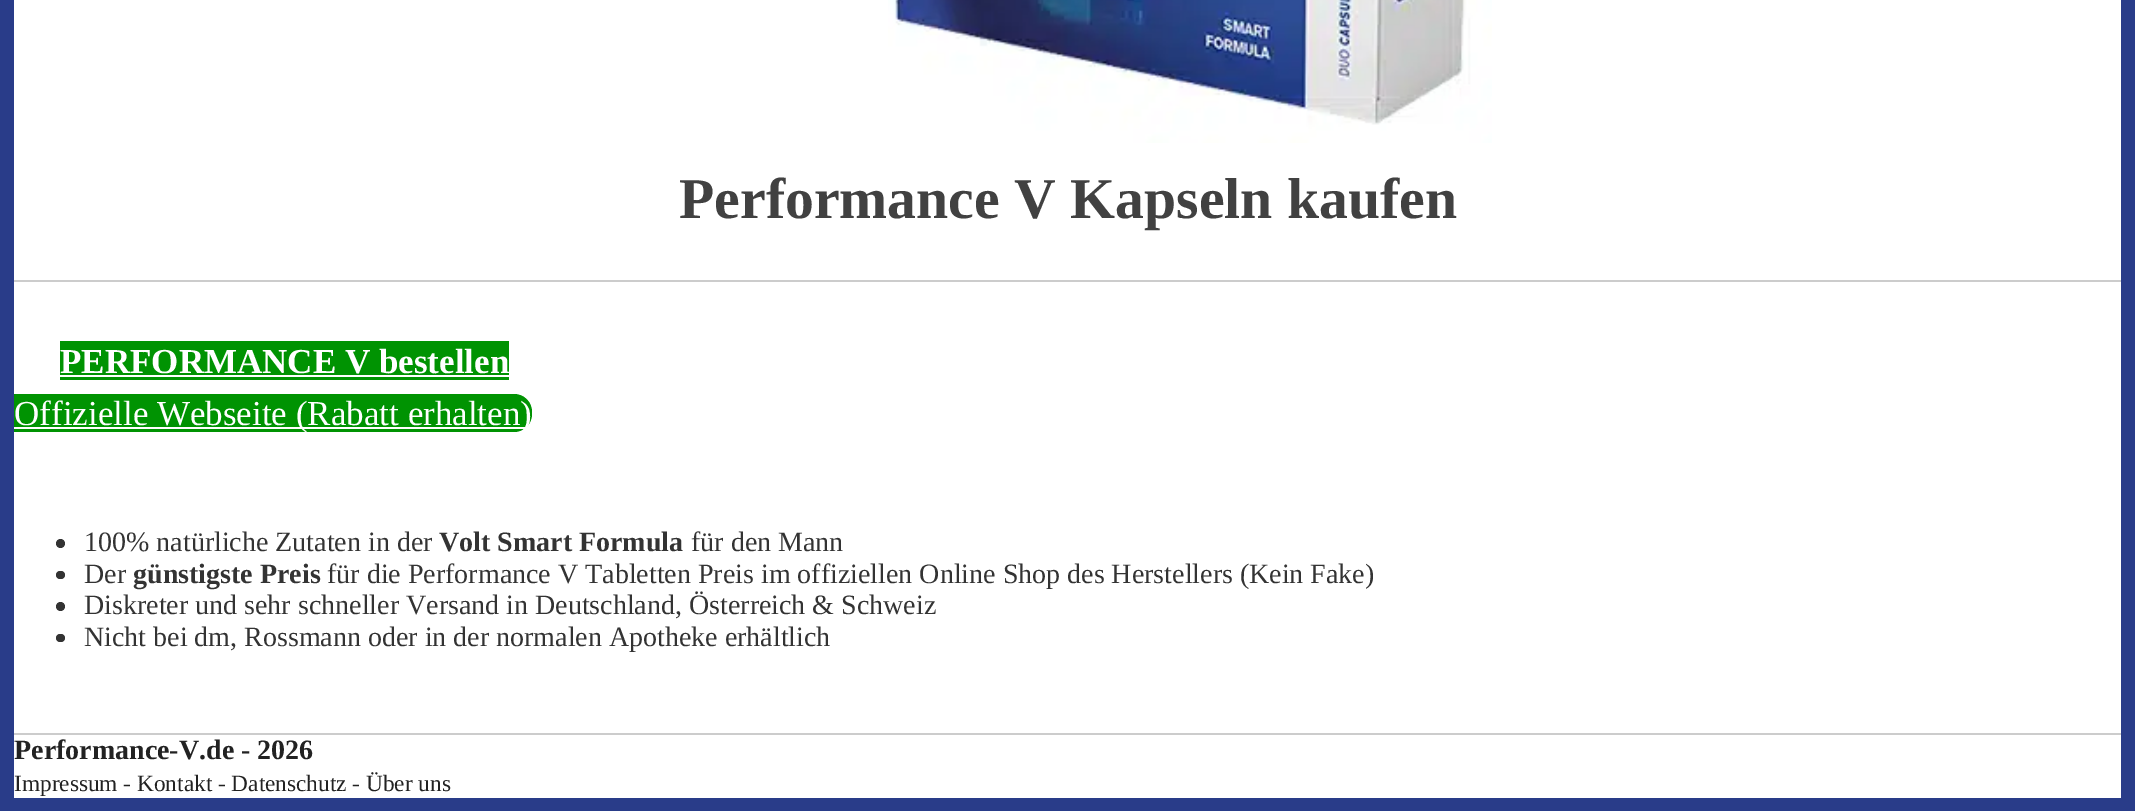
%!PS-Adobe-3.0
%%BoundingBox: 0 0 2135 811
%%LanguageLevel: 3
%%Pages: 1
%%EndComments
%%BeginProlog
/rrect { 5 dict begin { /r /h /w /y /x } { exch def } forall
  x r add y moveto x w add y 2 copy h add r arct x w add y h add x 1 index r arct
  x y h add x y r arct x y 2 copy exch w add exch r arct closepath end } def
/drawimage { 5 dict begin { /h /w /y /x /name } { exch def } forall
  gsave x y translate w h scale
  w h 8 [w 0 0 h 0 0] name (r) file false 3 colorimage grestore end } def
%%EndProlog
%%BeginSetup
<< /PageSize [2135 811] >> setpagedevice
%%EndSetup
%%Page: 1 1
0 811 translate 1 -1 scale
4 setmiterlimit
0.161 0.235 0.537 setrgbcolor
0 0 2135 811 rectfill
1 setgray
14 0 2107 733 rectfill
(images/1.raw) 888 0 604 143 drawimage
0.8 setgray
14 280 2107 2 rectfill
14 733 2107 2 rectfill
0 0.576 0.008 setrgbcolor
60 341 449 39 rectfill
1 setgray
60 375 449 2 rectfill
0 0.576 0.008 setrgbcolor
newpath 14 394 moveto 514 394 lineto 524 394 532 402 532 412 curveto 532 414 lineto 532 424 524 432 514 432 curveto 14 432 lineto closepath fill
1 setgray
14 427 518 2 rectfill
0.2 setgray
newpath 60.5 543.5 4.5 0 360 arc closepath fill
56 571 9 8 4 rrect fill
newpath 60.5 606.5 4.5 0 360 arc closepath fill
56 634 9 8 4 rrect fill
1 setgray
14 735 2107 63 rectfill
/LiberationSerif-Bold [57.75 0 0 -57.75 0 0] selectfont
0.255 setgray
679 218 moveto (Performance V Kapseln kaufen) show
/LiberationSerif-Bold [35 0 0 -35 0 0] selectfont
1 setgray
60 373 moveto (PERFORMANCE V bestellen) show
/LiberationSerif-Regular [35 0 0 -35 0 0] selectfont
14 425 moveto (Offizielle Webseite \(Rabatt erhalten\)) show
/LiberationSerif-Regular [28 0 0 -28 0 0] selectfont
0.2 setgray
84 551 moveto (100% natürliche Zutaten in der) show
/LiberationSerif-Bold [28 0 0 -28 0 0] selectfont
439 551 moveto (Volt Smart Formula) show
/LiberationSerif-Regular [28 0 0 -28 0 0] selectfont
691 551 moveto (für den Mann) show
84 583 moveto (Der) show
/LiberationSerif-Bold [28 0 0 -28 0 0] selectfont
133 583 moveto (günstigste Preis) show
/LiberationSerif-Regular [28 0 0 -28 0 0] selectfont
327 583 moveto (für die Performance V Tabletten Preis im offiziellen Online Shop des Herstellers \(Kein Fake\)) show
84 614 moveto (Diskreter und sehr schneller Versand in Deutschland, Österreich & Schweiz) show
84 646 moveto (Nicht bei dm, Rossmann oder in der normalen Apotheke erhältlich) show
/LiberationSerif-Bold [28 0 0 -28 0 0] selectfont
0.133 setgray
14 759 moveto (Performance-V.de - 2026) show
/LiberationSerif-Regular [23.3 0 0 -23.3 0 0] selectfont
14 791 moveto (Impressum - Kontakt - Datenschutz - Über uns) show
showpage
%%EOF
